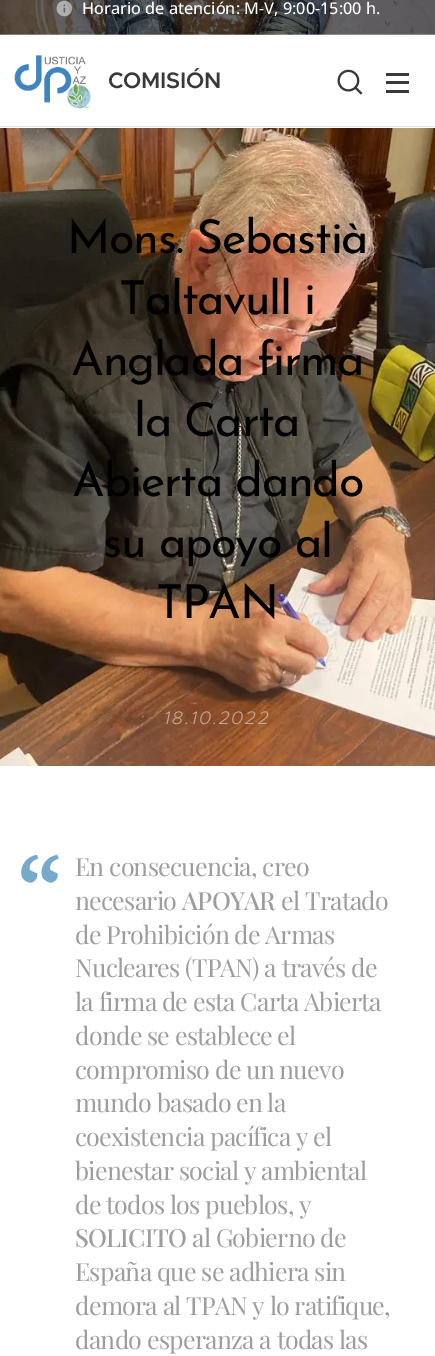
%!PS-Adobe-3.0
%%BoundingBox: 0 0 435 1356
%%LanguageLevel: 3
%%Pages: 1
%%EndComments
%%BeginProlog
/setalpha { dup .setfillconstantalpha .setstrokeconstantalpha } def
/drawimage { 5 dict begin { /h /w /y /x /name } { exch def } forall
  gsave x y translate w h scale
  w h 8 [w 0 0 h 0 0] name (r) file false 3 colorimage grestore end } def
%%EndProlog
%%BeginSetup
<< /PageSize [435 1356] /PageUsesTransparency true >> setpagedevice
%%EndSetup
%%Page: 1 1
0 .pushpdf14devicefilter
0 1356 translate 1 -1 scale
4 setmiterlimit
1 setgray
0 0 435 1356 rectfill
(images/1.raw) 0 0 435 35 drawimage
(images/2.raw) 56 0 17 17 drawimage
0.3 setalpha
0 34 435 1 rectfill
1 setalpha
(images/3.raw) 14 55 77 54 drawimage
(images/4.raw) 337 69 26 26 drawimage
0.224 setgray
386 81 23 3 rectfill
386 73 23 3 rectfill
386 90 23 3 rectfill
0.91 setgray
0 126 435 1 rectfill
(images/5.raw) 0 128 435 638 drawimage
/OpenSans-Medium [16.25 0 0 -16.25 0 0] selectfont
1 setgray
82 14 moveto (Horario de atención: M-V, 9:00-15:00 h.) show
/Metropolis-SemiBold [22.5 0 0 -22.5 0 0] selectfont
0.224 setgray
108 88 moveto -0.25 0 (COMISIÓN) ashow
/JosefinSans-Regular [46.75 0 0 -46.75 0 0] selectfont
0 setgray
67 253 moveto -1.25 0 (Mons. Sebastià) ashow
119 314 moveto -1.25 0 (Taltavull i) ashow
71 375 moveto -1.25 0 (Anglada firma) ashow
134 436 moveto -1.25 0 (la Carta) ashow
72 496 moveto -1.25 0 (Abierta dando) ashow
103 557 moveto -1.25 0 (su apoyo al) ashow
156 618 moveto -1.25 0 (TPAN) ashow
/Metropolis-LightItalic [18.25 0 0 -18.25 0 0] selectfont
0.776 0.659 0.588 setrgbcolor
164 724 moveto 1.75 0 (18.10.2022) ashow
/PTSerif-Regular [112 0 0 -112 0 0] selectfont
0.467 0.663 0.792 setrgbcolor
13 947 moveto -0.75 0 (“) ashow
/PlayfairDisplay-Regular [25 0 0 -25 0 0] selectfont
0.616 setgray
75 876 moveto -0.75 0 (En consecuencia, creo) ashow
75 910 moveto -0.75 0 (necesario) ashow
/PlayfairDisplay-Medium [25 0 0 -25 0 0] selectfont
182 910 moveto -0.75 0 (APOYAR) ashow
/PlayfairDisplay-Regular [25 0 0 -25 0 0] selectfont
281 910 moveto -0.75 0 (el Tratado) ashow
75 944 moveto -0.75 0 (de Prohibición de Armas) ashow
75 977 moveto -0.75 0 (Nucleares \(TPAN\) a través de) ashow
75 1011 moveto -0.75 0 (la firma de esta Carta Abierta) ashow
75 1045 moveto -0.75 0 (donde se establece el) ashow
75 1079 moveto -0.75 0 (compromiso de un nuevo) ashow
75 1112 moveto -0.75 0 (mundo basado en la) ashow
75 1146 moveto -0.75 0 (coexistencia pacífica y el) ashow
75 1180 moveto -0.75 0 (bienestar social y ambiental) ashow
75 1214 moveto -0.75 0 (de todos los pueblos, y) ashow
/PlayfairDisplay-Medium [25 0 0 -25 0 0] selectfont
75 1247 moveto -0.75 0 (SOLICITO) ashow
/PlayfairDisplay-Regular [25 0 0 -25 0 0] selectfont
192 1247 moveto -0.75 0 (al Gobierno de) ashow
75 1281 moveto -0.75 0 (España que se adhiera sin) ashow
75 1315 moveto -0.75 0 (demora al TPAN y lo ratifique,) ashow
75 1349 moveto -0.75 0 (dando esperanza a todas las) ashow
.poppdf14devicefilter showpage
%%EOF
